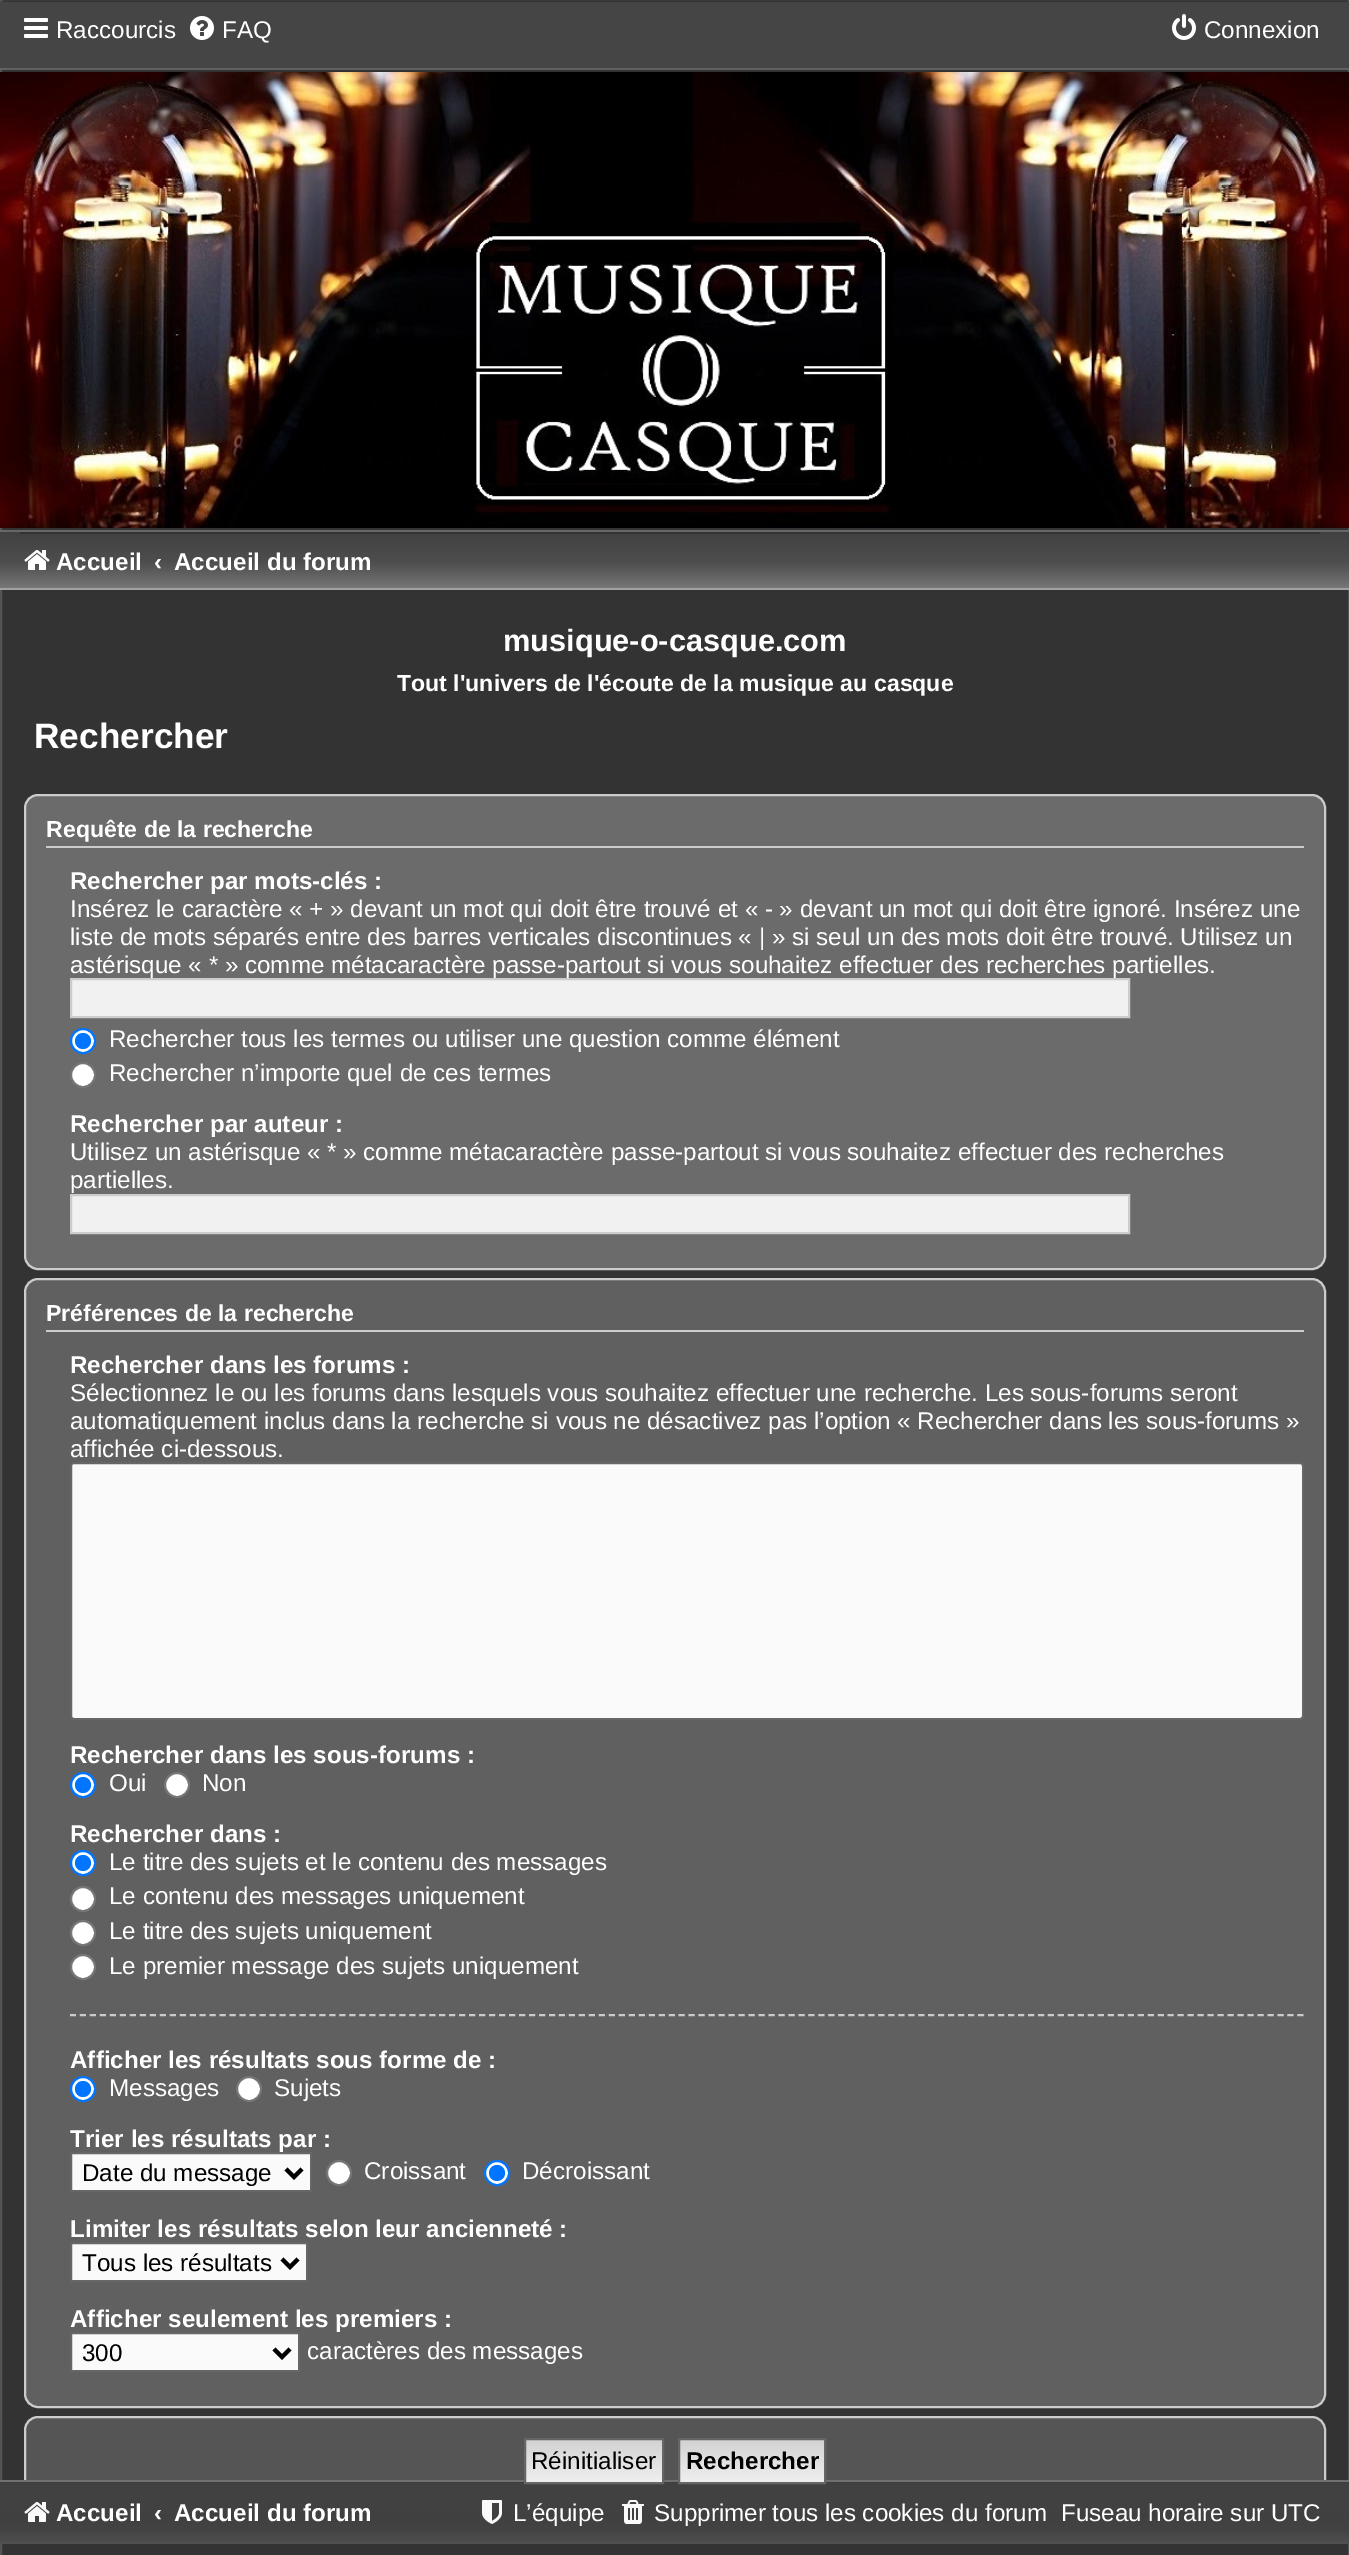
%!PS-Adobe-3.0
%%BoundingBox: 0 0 1349 2555
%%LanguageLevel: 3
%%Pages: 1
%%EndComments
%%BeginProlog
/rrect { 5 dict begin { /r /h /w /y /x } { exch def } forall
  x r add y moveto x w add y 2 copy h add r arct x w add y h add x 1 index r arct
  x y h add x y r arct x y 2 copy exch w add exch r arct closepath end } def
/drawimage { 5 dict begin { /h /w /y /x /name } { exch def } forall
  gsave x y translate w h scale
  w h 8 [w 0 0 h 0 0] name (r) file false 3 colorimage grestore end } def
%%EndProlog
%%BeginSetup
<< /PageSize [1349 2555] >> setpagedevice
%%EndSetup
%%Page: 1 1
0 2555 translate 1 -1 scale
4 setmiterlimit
0.2 setgray
0 0 1349 2555 rectfill
0.325 0.329 0.325 setrgbcolor
2 setlinewidth
1 -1 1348 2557 rectstroke
0.271 setgray
0 2 1349 66 rectfill
(images/1.raw) 24 18 24 20 drawimage
(images/2.raw) 190 16 24 24 drawimage
(images/3.raw) 1172 14 24 26 drawimage
0.38 setgray
0 68 1349 2 rectfill
(images/4.raw) 0 72 1349 456 drawimage
gsave newpath 0 532 moveto 1349 532 lineto 1349 588 lineto 0 588 lineto closepath clip newpath
<< /ShadingType 2 /ColorSpace /DeviceRGB /Coords [675 532 675 619] /Extend [true true] /Function << /FunctionType 3 /Domain [0 1] /Functions [<< /FunctionType 2 /Domain [0 1] /C0 [0.255 0.255 0.255] /C1 [0.306 0.306 0.306] /N 1 >> << /FunctionType 2 /Domain [0 1] /C0 [0.306 0.306 0.306] /C1 [0.529 0.529 0.529] /N 1 >> << /FunctionType 2 /Domain [0 1] /C0 [0.529 0.529 0.529] /C1 [0.98 0.98 0.98] /N 1 >>] /Bounds [0.35 0.76] /Encode [0 1 0 1 0 1] >> >> shfill grestore
0.4 0.404 0.4 setrgbcolor
0 530 1349 2 rectfill
0.631 0.635 0.631 setrgbcolor
0 588 1349 2 rectfill
0.2 setgray
20 532 1300 2 rectfill
(images/5.raw) 24 550 26 20 drawimage
0.42 setgray
25 795 1300 474 13 rrect gsave fill grestore
0.8 setgray
stroke
46 846 1258 2 rectfill
0.945 setgray
newpath 71 979 moveto 1129 979 lineto 1129 1017 lineto 71 1017 lineto closepath gsave fill grestore
0.8 setgray
stroke
1 setgray
newpath 83 1041 12 0 360 arc closepath gsave fill grestore
0 0.459 1 setrgbcolor
stroke
newpath 83 1041 8 0 360 arc closepath fill
1 setgray
newpath 83 1075 12 0 360 arc closepath gsave fill grestore
0.463 setgray
stroke
0.945 setgray
newpath 71 1195 moveto 1129 1195 lineto 1129 1233 lineto 71 1233 lineto closepath gsave fill grestore
0.8 setgray
stroke
0.376 setgray
25 1279 1300 1128 13 rrect gsave fill grestore
0.8 setgray
stroke
46 1330 1258 2 rectfill
0.98 setgray
71 1463 1232 256 3 rrect gsave fill grestore
0.4 setgray
stroke
1 setgray
newpath 83 1785 12 0 360 arc closepath gsave fill grestore
0 0.459 1 setrgbcolor
stroke
newpath 83 1785 8 0 360 arc closepath fill
1 setgray
newpath 177 1785 12 0 360 arc closepath gsave fill grestore
0.463 setgray
stroke
1 setgray
newpath 83 1863 12 0 360 arc closepath gsave fill grestore
0 0.459 1 setrgbcolor
stroke
newpath 83 1863 8 0 360 arc closepath fill
1 setgray
newpath 83 1899 12 0 360 arc closepath gsave fill grestore
0.463 setgray
stroke
1 setgray
newpath 83 1933 12 0 360 arc closepath gsave fill grestore
0.463 setgray
stroke
1 setgray
newpath 83 1967 12 0 360 arc closepath gsave fill grestore
0.463 setgray
stroke
0.8 setgray
[6 3.98] 0 setdash
newpath 70 2015 moveto 1304 2015 lineto stroke
1 setgray
newpath 83 2089 12 0 360 arc closepath gsave fill grestore
0 0.459 1 setrgbcolor
[] 0 setdash
stroke
newpath 83 2089 8 0 360 arc closepath fill
1 setgray
newpath 249 2089 12 0 360 arc closepath gsave fill grestore
0.463 setgray
stroke
0.98 setgray
newpath 71 2153 moveto 311 2153 lineto 311 2191 lineto 71 2191 lineto closepath gsave fill grestore
0.4 setgray
stroke
0 setgray
4 setlinewidth
newpath 286 2169 moveto 294 2177 lineto 302 2169 lineto stroke
1 setgray
newpath 339 2173 12 0 360 arc closepath gsave fill grestore
0.463 setgray
2 setlinewidth
stroke
1 setgray
newpath 497 2173 12 0 360 arc closepath gsave fill grestore
0 0.459 1 setrgbcolor
stroke
newpath 497 2173 8 0 360 arc closepath fill
0.98 setgray
newpath 71 2243 moveto 307 2243 lineto 307 2281 lineto 71 2281 lineto closepath gsave fill grestore
0.4 setgray
stroke
0 setgray
4 setlinewidth
newpath 282 2259 moveto 290 2267 lineto 298 2259 lineto stroke
0.98 setgray
newpath 71 2333 moveto 299 2333 lineto 299 2371 lineto 71 2371 lineto closepath gsave fill grestore
0.4 setgray
2 setlinewidth
stroke
0 setgray
4 setlinewidth
newpath 274 2349 moveto 282 2357 lineto 290 2349 lineto stroke
0.333 setgray
25 2417 1300 88 13 rrect gsave fill grestore
0.8 setgray
2 setlinewidth
stroke
0.439 setgray
0 2480 1349 2 rectfill
gsave newpath 526 2440 moveto 662 2440 lineto 662 2482 lineto 526 2482 lineto closepath clip newpath
<< /ShadingType 2 /ColorSpace /DeviceRGB /Coords [594 2440 594 2482] /Extend [true true] /Function << /FunctionType 2 /Domain [0 1] /C0 [0.824 0.824 0.824] /C1 [0.937 0.937 0.937] /N 1 >> >> shfill grestore
(images/6.raw) 0 2482 1349 62 drawimage
0.4 setgray
525 2439 138 44 rectstroke
gsave newpath 680 2440 moveto 824 2440 lineto 824 2482 lineto 680 2482 lineto closepath clip newpath
<< /ShadingType 2 /ColorSpace /DeviceRGB /Coords [752 2440 752 2482] /Extend [true true] /Function << /FunctionType 2 /Domain [0 1] /C0 [0.824 0.824 0.824] /C1 [0.937 0.937 0.937] /N 1 >> >> shfill grestore
679 2439 146 44 rectstroke
(images/7.raw) 24 2502 26 20 drawimage
(images/8.raw) 482 2500 20 24 drawimage
(images/9.raw) 622 2500 22 24 drawimage
/LiberationSans-Regular [24.2 0 0 -24.2 0 0] selectfont
1 setgray
56 38 moveto (Raccourcis) show
222 38 moveto (FAQ) show
1204 38 moveto (Connexion) show
/LiberationSans-Bold [24.2 0 0 -24.2 0 0] selectfont
56 570 moveto (Accueil) show
154 570 moveto (‹) show
174 570 moveto (Accueil du forum) show
/LiberationSans-Bold [30.75 0 0 -30.75 0 0] selectfont
503 651 moveto (musique-o-casque.com) show
/LiberationSans-Bold [23.1 0 0 -23.1 0 0] selectfont
397 691 moveto (Tout l'univers de l'écoute de la musique au casque) show
/LiberationSans-Bold [35.25 0 0 -35.25 0 0] selectfont
34 748 moveto (Rechercher) show
/LiberationSans-Bold [23.1 0 0 -23.1 0 0] selectfont
46 837 moveto (Requête de la recherche) show
/LiberationSans-Bold [24.2 0 0 -24.2 0 0] selectfont
70 889 moveto (Rechercher par mots-clés :) show
/LiberationSans-Regular [24.2 0 0 -24.2 0 0] selectfont
70 917 moveto (Insérez le caractère « + » devant un mot qui doit être trouvé et « - » devant un mot qui doit être ignoré. Insérez une) show
70 945 moveto (liste de mots séparés entre des barres verticales discontinues « | » si seul un des mots doit être trouvé. Utilisez un) show
70 973 moveto (astérisque « * » comme métacaractère passe-partout si vous souhaitez effectuer des recherches partielles.) show
109 1047 moveto (Rechercher tous les termes ou utiliser une question comme élément) show
109 1081 moveto (Rechercher n’importe quel de ces termes) show
/LiberationSans-Bold [24.2 0 0 -24.2 0 0] selectfont
70 1132 moveto (Rechercher par auteur :) show
/LiberationSans-Regular [24.2 0 0 -24.2 0 0] selectfont
70 1160 moveto (Utilisez un astérisque « * » comme métacaractère passe-partout si vous souhaitez effectuer des recherches) show
70 1188 moveto (partielles.) show
/LiberationSans-Bold [23.1 0 0 -23.1 0 0] selectfont
46 1321 moveto (Préférences de la recherche) show
/LiberationSans-Bold [24.2 0 0 -24.2 0 0] selectfont
70 1373 moveto (Rechercher dans les forums :) show
/LiberationSans-Regular [24.2 0 0 -24.2 0 0] selectfont
70 1401 moveto (Sélectionnez le ou les forums dans lesquels vous souhaitez effectuer une recherche. Les sous-forums seront) show
70 1429 moveto (automatiquement inclus dans la recherche si vous ne désactivez pas l’option « Rechercher dans les sous-forums ») show
70 1457 moveto (affichée ci-dessous.) show
/LiberationSans-Bold [24.2 0 0 -24.2 0 0] selectfont
70 1763 moveto (Rechercher dans les sous-forums :) show
/LiberationSans-Regular [24.2 0 0 -24.2 0 0] selectfont
109 1791 moveto (Oui) show
202 1791 moveto (Non) show
/LiberationSans-Bold [24.2 0 0 -24.2 0 0] selectfont
70 1842 moveto (Rechercher dans :) show
/LiberationSans-Regular [24.2 0 0 -24.2 0 0] selectfont
109 1870 moveto (Le titre des sujets et le contenu des messages) show
109 1904 moveto (Le contenu des messages uniquement) show
109 1939 moveto (Le titre des sujets uniquement) show
109 1974 moveto (Le premier message des sujets uniquement) show
/LiberationSans-Bold [24.2 0 0 -24.2 0 0] selectfont
70 2068 moveto (Afficher les résultats sous forme de :) show
/LiberationSans-Regular [24.2 0 0 -24.2 0 0] selectfont
109 2096 moveto (Messages) show
274 2096 moveto (Sujets) show
/LiberationSans-Bold [24.2 0 0 -24.2 0 0] selectfont
70 2147 moveto (Trier les résultats par :) show
/LiberationSans-Regular [24.2 0 0 -24.2 0 0] selectfont
0 setgray
82 2181 moveto (Date du message) show
1 setgray
364 2179 moveto (Croissant) show
522 2179 moveto (Décroissant) show
/LiberationSans-Bold [24.2 0 0 -24.2 0 0] selectfont
70 2237 moveto (Limiter les résultats selon leur ancienneté :) show
/LiberationSans-Regular [24.2 0 0 -24.2 0 0] selectfont
0 setgray
82 2271 moveto (Tous les résultats) show
/LiberationSans-Bold [24.2 0 0 -24.2 0 0] selectfont
1 setgray
70 2327 moveto (Afficher seulement les premiers :) show
/LiberationSans-Regular [24.2 0 0 -24.2 0 0] selectfont
0 setgray
82 2361 moveto (300) show
1 setgray
307 2359 moveto (caractères des messages) show
0 setgray
531 2469 moveto (Réinitialiser) show
/LiberationSans-Bold [24.2 0 0 -24.2 0 0] selectfont
686 2469 moveto (Rechercher) show
1 setgray
56 2521 moveto (Accueil) show
154 2521 moveto (‹) show
174 2521 moveto (Accueil du forum) show
/LiberationSans-Regular [24.2 0 0 -24.2 0 0] selectfont
513 2521 moveto (L’équipe) show
654 2521 moveto (Supprimer tous les cookies du forum) show
1061 2521 moveto (Fuseau horaire sur UTC) show
showpage
%%EOF
